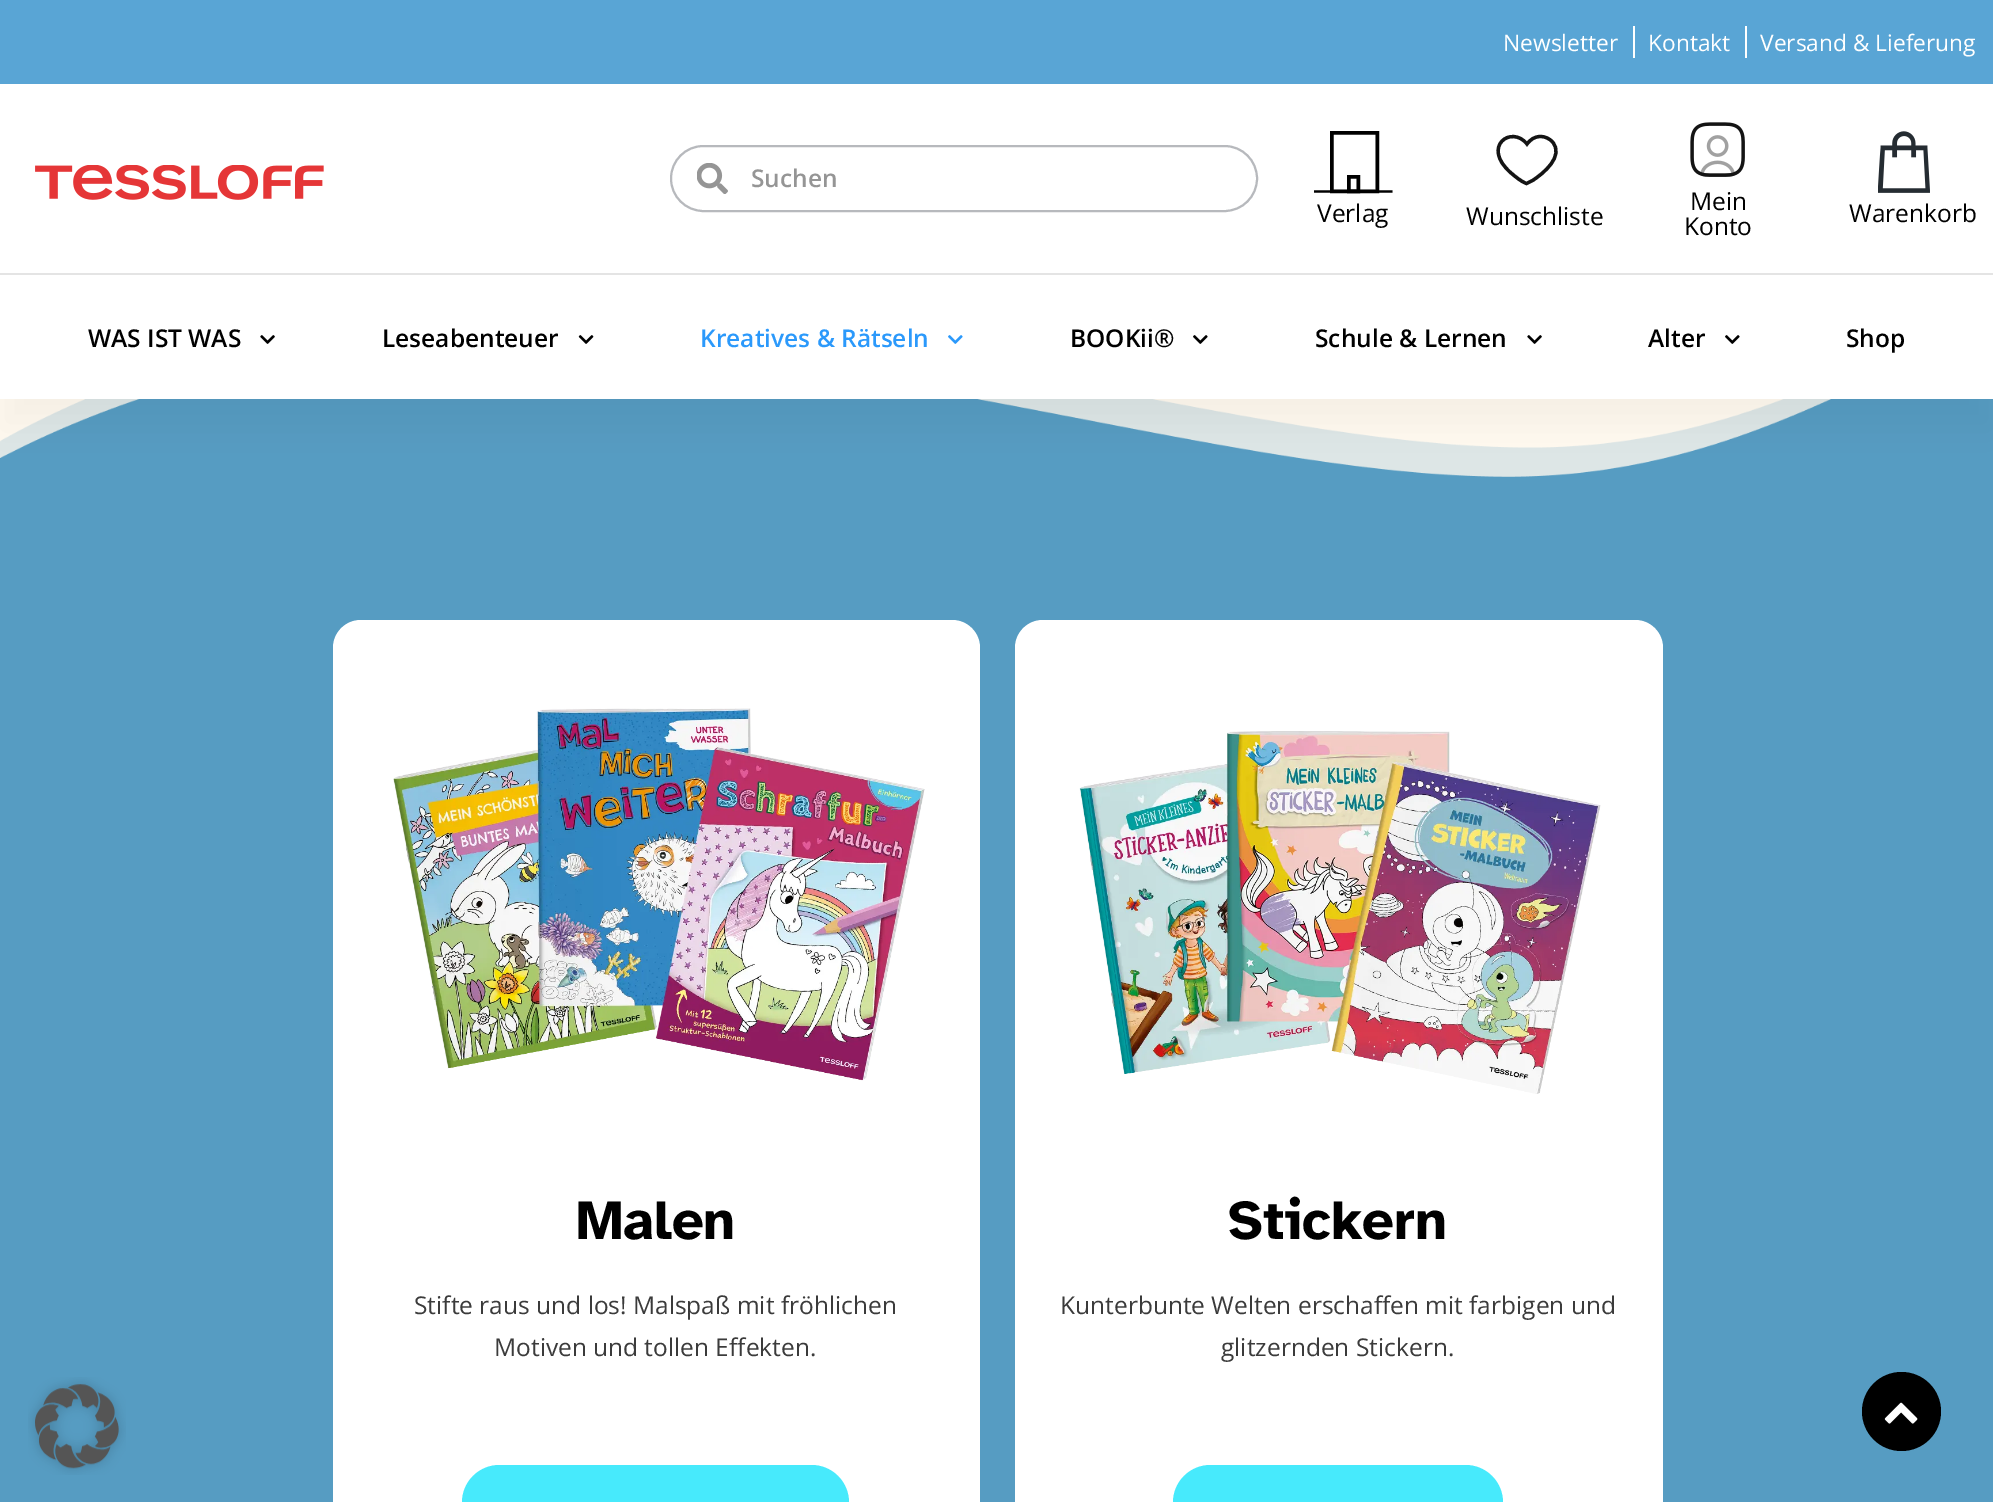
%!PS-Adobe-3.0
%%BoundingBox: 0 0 1993 1502
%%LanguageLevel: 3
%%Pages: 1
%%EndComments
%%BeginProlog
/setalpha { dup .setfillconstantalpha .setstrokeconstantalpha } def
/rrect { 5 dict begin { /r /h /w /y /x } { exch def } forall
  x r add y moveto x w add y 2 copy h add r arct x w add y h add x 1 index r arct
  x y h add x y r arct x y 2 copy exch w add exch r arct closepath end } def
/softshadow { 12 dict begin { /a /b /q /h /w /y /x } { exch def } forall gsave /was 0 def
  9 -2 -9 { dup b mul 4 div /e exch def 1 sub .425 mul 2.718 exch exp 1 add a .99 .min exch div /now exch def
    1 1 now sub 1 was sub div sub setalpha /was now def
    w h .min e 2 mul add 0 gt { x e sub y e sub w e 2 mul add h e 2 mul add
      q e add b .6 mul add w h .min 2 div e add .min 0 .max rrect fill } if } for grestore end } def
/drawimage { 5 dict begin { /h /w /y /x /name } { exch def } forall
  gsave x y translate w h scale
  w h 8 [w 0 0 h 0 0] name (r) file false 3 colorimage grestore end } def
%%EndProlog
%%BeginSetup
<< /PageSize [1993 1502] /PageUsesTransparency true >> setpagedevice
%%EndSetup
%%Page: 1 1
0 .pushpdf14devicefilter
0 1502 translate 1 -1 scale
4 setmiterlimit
1 0.976 0.937 setrgbcolor
0 0 1993 1502 rectfill
0.349 0.647 0.835 setrgbcolor
0 0 1993 84 rectfill
1 setgray
1633 26 2 32 rectfill
1745 26 2 32 rectfill
0 84 1993 189 rectfill
(images/1.raw) 35 165 289 35 drawimage
0.718 0.725 0.741 setrgbcolor
2 setlinewidth
671 146 586 65 32.5 rrect stroke
(images/2.raw) 697 163 31 31 drawimage
0 setgray
3.5 setlinewidth
1348.75 176.75 9.5 14.5 rectstroke
1331.75 132.75 45.5 58.5 rectstroke
2.2 setlinewidth
newpath 1314 191.5 moveto 1392.5 191.5 lineto stroke
0.078 setgray
3.3 setlinewidth
newpath 1540.5 136.5 moveto 1545 136.5 1549.5 138.5 1552.5 142 curveto 1564.5 156 1543.5 173.5 1532.5 180.5 curveto 1526.5 183.5 lineto 1521 181.5 1514.5 176 1510.5 172.5 curveto 1481 146.5 1511.5 124.5 1527 144 curveto 1530.5 139.5 1534.5 136.5 1540.5 136.5 curveto closepath stroke
(images/3.raw) 1690 122 55 55 drawimage
(images/4.raw) 1878 131 52 62 drawimage
(images/10.raw) 0 399 1993 81 drawimage
0.337 0.612 0.761 setrgbcolor
0 480 1993 1022 rectfill
0 setgray
0 303 1993 126 0 19 0.04 softshadow
1 setgray
0 275 1993 124 rectfill
0.894 setgray
0 273 1993 2 rectfill
(images/5.raw) 260 335 15 9 drawimage
(images/6.raw) 578 335 16 9 drawimage
(images/7.raw) 948 335 15 9 drawimage
(images/8.raw) 1193 335 15 9 drawimage
(images/5.raw) 1527 335 15 9 drawimage
(images/9.raw) 1725 335 15 9 drawimage
1 setgray
333 620 647 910 28 rrect fill
(images/11.raw) 393 708 532 373 drawimage
0.278 0.918 0.988 setrgbcolor
462 1465 387 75 37.5 rrect fill
1 setgray
1015 620 648 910 28 rrect fill
(images/12.raw) 1079 731 522 363 drawimage
0.278 0.918 0.988 setrgbcolor
1173 1465 330 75 37.5 rrect fill
(images/13.raw) 28 1377 98 98 drawimage
0 setgray
newpath 1901.5 1411.5 39.5 0 360 arc closepath fill
(images/14.raw) 1884 1402 34 22 drawimage
/OpenSans-Regular [22.75 0 0 -22.75 0 0] selectfont
1 setgray
1503 51 moveto (Newsletter) show
1648 51 moveto (Kontakt) show
1760 51 moveto (Versand & Lieferung) show
/OpenSans-SemiBold [24.5 0 0 -24.5 0 0] selectfont
0.584 setgray
751 187 moveto (Suchen) show
/OpenSans-Regular [24.5 0 0 -24.5 0 0] selectfont
0 setgray
1317 222 moveto (Verlag) show
1466 225 moveto (Wunschliste) show
1690 210 moveto (Mein) show
1684 235 moveto (Konto) show
1849 222 moveto (Warenkorb) show
/OpenSans-SemiBold [24.5 0 0 -24.5 0 0] selectfont
88 347 moveto (WAS IST WAS) show
382 347 moveto (Leseabenteuer) show
0.169 0.6 0.984 setrgbcolor
700 347 moveto (Kreatives & Rätseln) show
0 setgray
1070 347 moveto (BOOKii®) show
1315 347 moveto (Schule & Lernen) show
1648 347 moveto (Alter) show
1846 347 moveto (Shop) show
/AtkinsonHyperlegible-Bold [56 0 0 -56 0 0] selectfont
576 1239 moveto (Malen) show
/OpenSans-Regular [24.5 0 0 -24.5 0 0] selectfont
0.231 setgray
414 1314 moveto (Stifte raus und los! Malspaß mit fröhlichen) show
494 1356 moveto (Motiven und tollen Effekten.) show
/AtkinsonHyperlegible-Bold [56 0 0 -56 0 0] selectfont
0 setgray
1228 1239 moveto (Stickern) show
/OpenSans-Regular [24.5 0 0 -24.5 0 0] selectfont
0.231 setgray
1060 1314 moveto (Kunterbunte Welten erschaffen mit farbigen und) show
1221 1356 moveto (glitzernden Stickern.) show
.poppdf14devicefilter showpage
%%EOF
